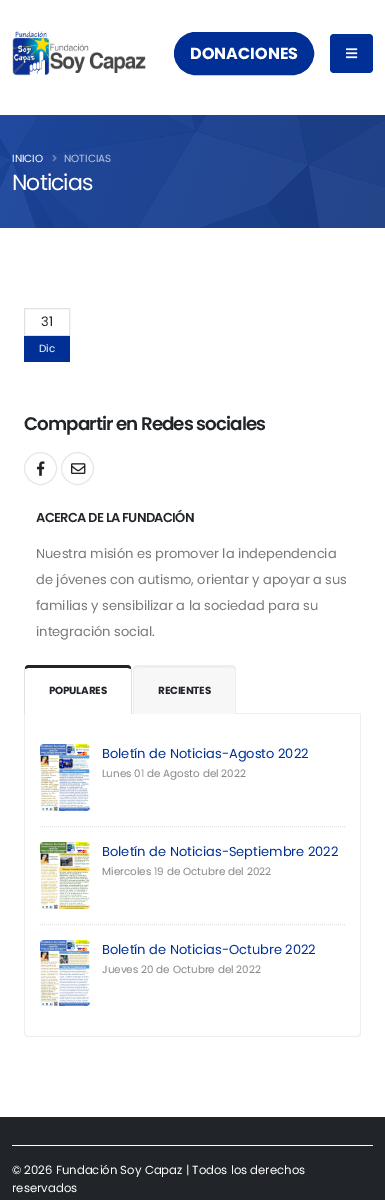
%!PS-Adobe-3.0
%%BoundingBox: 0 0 385 1200
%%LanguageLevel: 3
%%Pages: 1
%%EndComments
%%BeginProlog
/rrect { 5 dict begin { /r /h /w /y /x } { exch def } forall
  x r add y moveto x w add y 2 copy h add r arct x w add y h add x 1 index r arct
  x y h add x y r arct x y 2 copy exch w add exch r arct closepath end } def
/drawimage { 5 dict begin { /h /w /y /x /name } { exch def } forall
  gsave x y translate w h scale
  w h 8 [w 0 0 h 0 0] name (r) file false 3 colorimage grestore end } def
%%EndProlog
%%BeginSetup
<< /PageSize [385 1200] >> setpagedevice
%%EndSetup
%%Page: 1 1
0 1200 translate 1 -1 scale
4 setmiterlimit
1 setgray
0 0 385 1200 rectfill
(images/1.raw) 12 31 134 45 drawimage
0 0.188 0.584 setrgbcolor
174.5 32.5 139 42 21 rrect gsave fill grestore
stroke
330 34 43 39 4 rrect fill
(images/2.raw) 346 48 12 11 drawimage
(images/3.raw) 0 115 385 113 drawimage
(images/4.raw) 52 155 5 7 drawimage
0.871 0.886 0.902 setrgbcolor
24.5 308.5 45 27 rectstroke
0 0.188 0.584 setrgbcolor
24 336 46 26 rectfill
0.906 setgray
newpath 40.5 468.5 16 0 360 arc closepath stroke
(images/5.raw) 37 461 8 15 drawimage
newpath 77.5 468.5 16 0 360 arc closepath stroke
(images/6.raw) 71 463 15 11 drawimage
0.933 setgray
132 713 229 1 rectfill
0.129 0.145 0.161 setrgbcolor
newpath 29 665 moveto 27 665 26 666 25 667 curveto 25 669 lineto 28 668 lineto 128 668 lineto 131 669 lineto 131 667 lineto 130 666 129 665 127 665 curveto closepath fill
0.871 0.886 0.902 setrgbcolor
newpath 131 714 moveto 132 714 lineto 132 670 lineto 131 667 lineto 131 669 lineto 131 670 131 709 131 714 curveto closepath fill
newpath 24 714 moveto 25 714 lineto 25 709 25 670 25 669 curveto 25 667 lineto 24 670 lineto closepath fill
0.969 setgray
newpath 138 665 moveto 231 665 lineto 234 665 236 667 236 670 curveto 236 714 lineto 133 714 lineto 133 670 lineto 133 667 135 665 138 665 curveto closepath fill
0.933 setgray
newpath 138 665 moveto 231 665 lineto 234 665 236 667 236 670 curveto 236 714 lineto 133 714 lineto 133 670 lineto 133 667 135 665 138 665 curveto closepath 138 668 moveto 231 668 lineto 233 668 235 669 235 670 curveto 235 714 lineto 134 714 lineto 134 670 lineto 134 669 136 668 138 668 curveto closepath eofill
newpath 24 714 moveto 361 714 lineto 361 1033 lineto 361 1035 359 1037 357 1037 curveto 28 1037 lineto 26 1037 24 1035 24 1033 curveto closepath 25 714 moveto 360 714 lineto 360 1033 lineto 360 1035 359 1036 357 1036 curveto 28 1036 lineto 26 1036 25 1035 25 1033 curveto closepath eofill
0.886 setgray
[1 1] 0 setdash
newpath 40 826.5 moveto 345 826.5 lineto stroke
(images/7.raw) 40 744 50 67 drawimage
newpath 40 924.5 moveto 345 924.5 lineto stroke
(images/8.raw) 40 842 50 67 drawimage
(images/9.raw) 40 940 50 66 drawimage
0.129 0.145 0.161 setrgbcolor
0 1117 385 83 rectfill
1 setgray
12 1145 361 1 rectfill
/Poppins-Bold [16 0 0 -16 0 0] selectfont
190 59 moveto (DONACIONES) show
/Poppins-Regular [10.4 0 0 -10.4 0 0] selectfont
12 162 moveto (INICIO) show
0.737 0.78 0.875 setrgbcolor
64 162 moveto (NOTICIAS) show
/Poppins-Regular [22 0 0 -22 0 0] selectfont
1 setgray
12 190 moveto -1 0 (Noticias) ashow
/Poppins-Regular [13 0 0 -13 0 0] selectfont
0.129 0.145 0.161 setrgbcolor
41 326 moveto (31) show
/Poppins-Regular [10.4 0 0 -10.4 0 0] selectfont
1 setgray
39 352 moveto (Dic) show
/Poppins-SemiBold [18.25 0 0 -18.25 0 0] selectfont
0.129 0.145 0.161 setrgbcolor
24 430 moveto -0.9 0 (Compartir en Redes sociales) ashow
/Poppins-SemiBold [13 0 0 -13 0 0] selectfont
36 522 moveto -0.65 0 (ACERCA DE LA FUNDACIÓN) ashow
/Poppins-Regular [13 0 0 -13 0 0] selectfont
0.467 setgray
36 558 moveto (Nuestra misión es promover la independencia) show
36 584 moveto (de jóvenes con autismo, orientar y apoyar a sus) show
36 610 moveto (familias y sensibilizar a la sociedad para su) show
36 636 moveto (integración social.) show
/Poppins-Bold [10.4 0 0 -10.4 0 0] selectfont
0.129 0.145 0.161 setrgbcolor
49 694 moveto -0.25 0 (POPULARES) ashow
158 694 moveto -0.25 0 (RECIENTES) ashow
/Poppins-Regular [13 0 0 -13 0 0] selectfont
0 0.188 0.584 setrgbcolor
102 758 moveto (Boletín de Noticias-Agosto 2022) show
/Poppins-Regular [10.4 0 0 -10.4 0 0] selectfont
0.533 setgray
102 777 moveto (Lunes 01 de Agosto del 2022) show
/Poppins-Regular [13 0 0 -13 0 0] selectfont
0 0.188 0.584 setrgbcolor
102 856 moveto (Boletín de Noticias-Septiembre 2022) show
/Poppins-Regular [10.4 0 0 -10.4 0 0] selectfont
0.533 setgray
102 875 moveto (Miercoles 19 de Octubre del 2022) show
/Poppins-Regular [13 0 0 -13 0 0] selectfont
0 0.188 0.584 setrgbcolor
102 954 moveto (Boletín de Noticias-Octubre 2022) show
/Poppins-Regular [10.4 0 0 -10.4 0 0] selectfont
0.533 setgray
102 973 moveto (Jueves 20 de Octubre del 2022) show
/Poppins-Regular [11.7 0 0 -11.7 0 0] selectfont
1 setgray
12 1174 moveto (© 2026 Fundación Soy Capaz | Todos los derechos) show
12 1192 moveto (reservados) show
showpage
%%EOF
